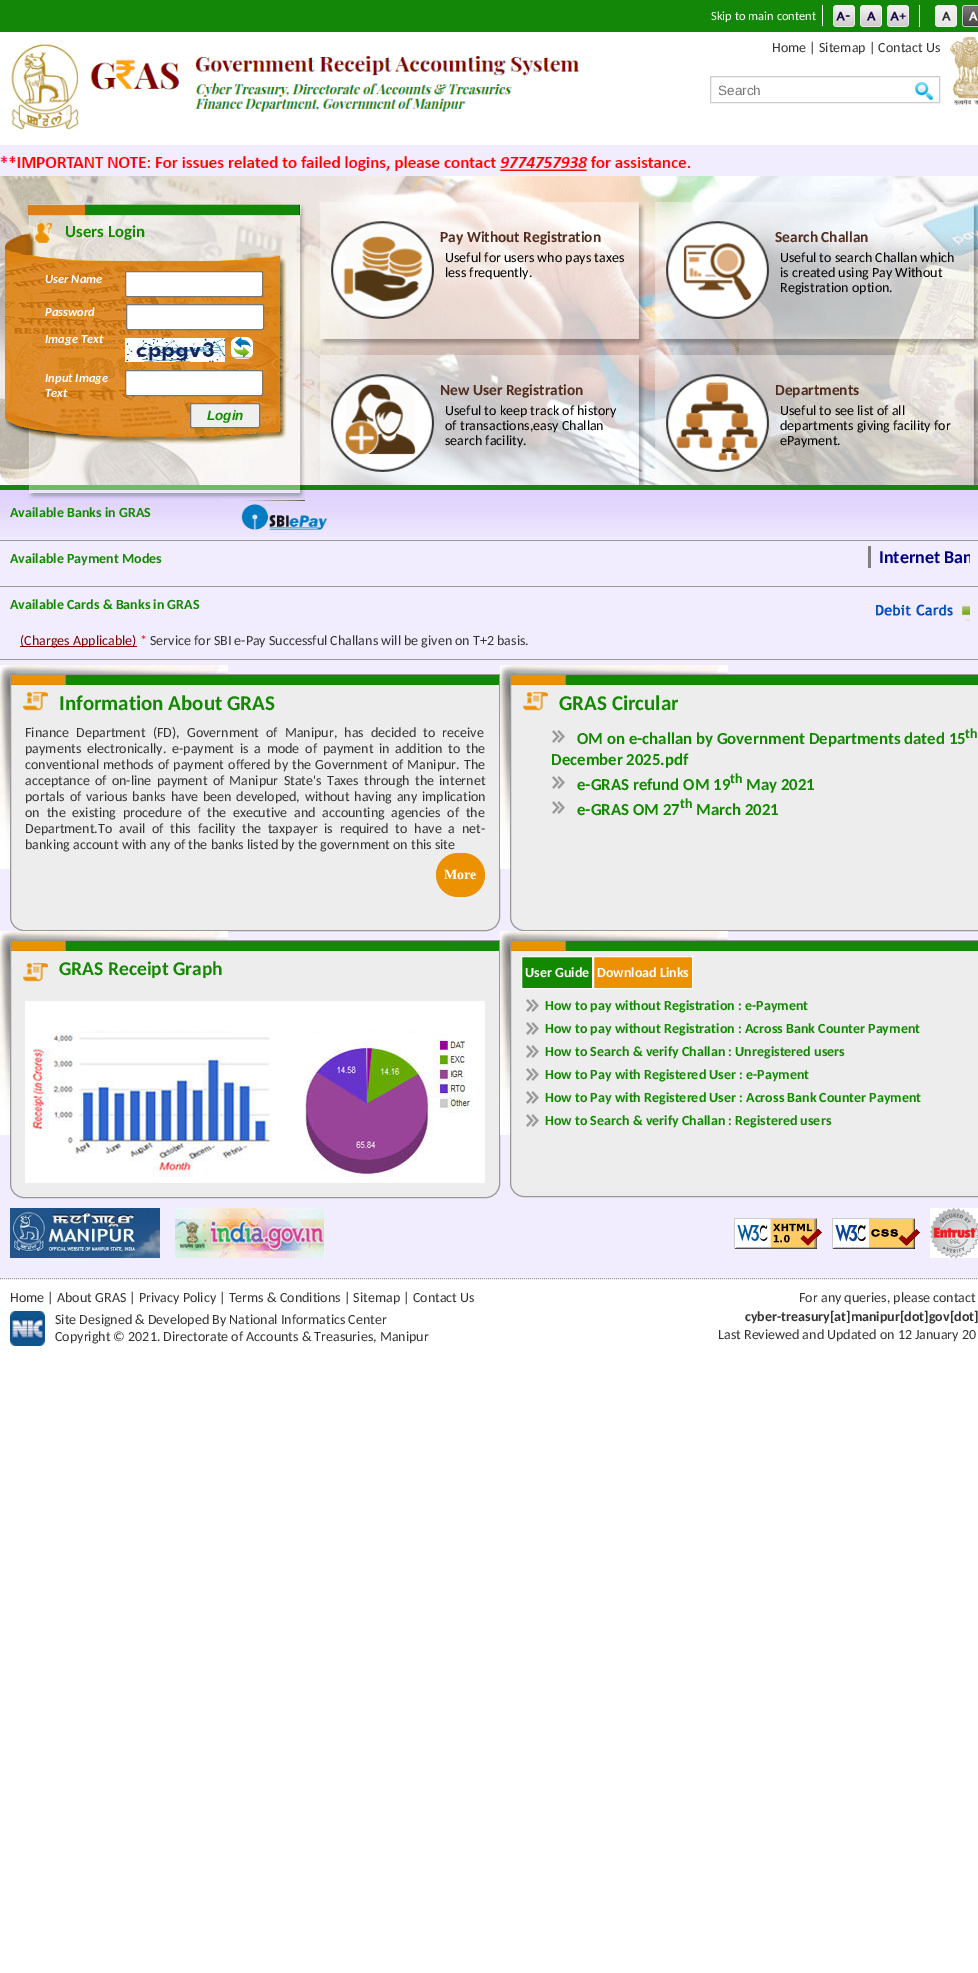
%!PS-Adobe-3.0
%%BoundingBox: 0 0 978 1973
%%LanguageLevel: 3
%%Pages: 1
%%EndComments
%%BeginProlog
/rrect { 5 dict begin { /r /h /w /y /x } { exch def } forall
  x r add y moveto x w add y 2 copy h add r arct x w add y h add x 1 index r arct
  x y h add x y r arct x y 2 copy exch w add exch r arct closepath end } def
/drawimage { 5 dict begin { /h /w /y /x /name } { exch def } forall
  gsave x y translate w h scale
  w h 8 [w 0 0 h 0 0] name (r) file false 3 colorimage grestore end } def
%%EndProlog
%%BeginSetup
<< /PageSize [978 1973] >> setpagedevice
%%EndSetup
%%Page: 1 1
0 1973 translate 1 -1 scale
4 setmiterlimit
1 setgray
0 0 978 1973 rectfill
0.075 0.533 0.031 setrgbcolor
0 0 978 32 rectfill
1 setgray
822 5 1 21 rectfill
919 5 1 22 rectfill
(images/1.raw) 833 5 22 22 drawimage
(images/2.raw) 860 5 22 22 drawimage
(images/3.raw) 887 5 22 22 drawimage
(images/4.raw) 935 5 22 22 drawimage
(images/5.raw) 962 5 16 22 drawimage
(images/6.raw) 11 43 569 87 drawimage
0.8 setgray
710.5 76.5 229 26 rectstroke
(images/7.raw) 915 82 18 18 drawimage
(images/8.raw) 950 37 28 68 drawimage
(images/9.raw) 0 176 978 309 drawimage
0.949 0.925 1 setrgbcolor
0 145 978 31 rectfill
(images/10.raw) 0 156 691 15 drawimage
(images/23.raw) 0 490 978 48 drawimage
0.075 0.533 0.031 setrgbcolor
0 485 978 5 rectfill
(images/11.raw) 5 201 300 300 drawimage
(images/12.raw) 34 223 18 20 drawimage
1 setgray
125.5 271.5 137 25 1.5 rrect gsave fill grestore
0.463 setgray
stroke
1 setgray
231 337 22 22 7 rrect fill
(images/13.raw) 125 338 100 24 drawimage
(images/14.raw) 233 337 18 22 drawimage
125.5 370.5 137 25 1.5 rrect gsave fill grestore
0.463 setgray
stroke
0.937 setgray
190.5 403.5 69 24 1.5 rrect gsave fill grestore
0.463 setgray
stroke
1 setgray
126.5 304.5 137 25 1.5 rrect gsave fill grestore
0.463 setgray
stroke
(images/15.raw) 320 202 325 144 drawimage
(images/16.raw) 331 221 103 98 drawimage
(images/17.raw) 655 202 323 144 drawimage
(images/18.raw) 666 221 103 98 drawimage
(images/19.raw) 320 355 325 130 drawimage
(images/20.raw) 331 374 103 98 drawimage
(images/21.raw) 655 355 323 130 drawimage
(images/22.raw) 666 374 103 98 drawimage
0.949 0.925 1 setrgbcolor
0 538 978 741 rectfill
0.6 setgray
0 540 978 1 rectfill
(images/24.raw) 241 504 87 26 drawimage
0 586 978 1 rectfill
0.502 setgray
868 546 3 22 rectfill
0.6 setgray
0 659 978 1 rectfill
(images/25.raw) 876 604 94 18 drawimage
0.502 0 0 setrgbcolor
20 646 117 1 rectfill
(images/26.raw) 0 665 228 204 drawimage
0.929 0.929 0.933 setrgbcolor
newpath 10.5 674.5 moveto 499.5 674.5 lineto 499.5 917 lineto 499.5 924.5 493.5 930.5 486 930.5 curveto 24 930.5 lineto 16.5 930.5 10.5 924.5 10.5 917 curveto closepath gsave fill grestore
0.6 setgray
stroke
0.075 0.533 0.031 setrgbcolor
449 675 50 10 rectfill
(images/27.raw) 11 675 438 10 drawimage
(images/28.raw) 23 692 25 19 drawimage
0.925 0.569 0.008 setrgbcolor
436 853 49 44 22 rrect fill
(images/26.raw) 500 665 228 204 drawimage
0.929 0.929 0.933 setrgbcolor
newpath 510.5 674.5 moveto 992.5 674.5 lineto 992.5 917 lineto 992.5 924.5 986.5 930.5 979 930.5 curveto 524 930.5 lineto 516.5 930.5 510.5 924.5 510.5 917 curveto closepath gsave fill grestore
0.6 setgray
stroke
0.075 0.533 0.031 setrgbcolor
949 675 29 10 rectfill
(images/27.raw) 511 675 438 10 drawimage
(images/28.raw) 523 692 25 19 drawimage
(images/29.raw) 552 730 13 13 drawimage
(images/29.raw) 552 776 13 13 drawimage
(images/29.raw) 552 801 13 13 drawimage
(images/26.raw) 0 931 228 204 drawimage
0.929 0.929 0.933 setrgbcolor
newpath 10.5 940.5 moveto 499.5 940.5 lineto 499.5 1184 lineto 499.5 1191.5 493.5 1197.5 486 1197.5 curveto 24 1197.5 lineto 16.5 1197.5 10.5 1191.5 10.5 1184 curveto closepath gsave fill grestore
0.6 setgray
stroke
0.075 0.533 0.031 setrgbcolor
449 941 50 10 rectfill
(images/27.raw) 11 941 438 10 drawimage
(images/28.raw) 23 963 25 19 drawimage
(images/30.raw) 25 1001 460 182 drawimage
(images/26.raw) 500 931 228 204 drawimage
0.929 0.929 0.933 setrgbcolor
newpath 510.5 940.5 moveto 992.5 940.5 lineto 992.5 1183 lineto 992.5 1190.5 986.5 1196.5 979 1196.5 curveto 524 1196.5 lineto 516.5 1196.5 510.5 1190.5 510.5 1183 curveto closepath gsave fill grestore
0.6 setgray
stroke
0.075 0.533 0.031 setrgbcolor
949 941 29 10 rectfill
(images/27.raw) 511 941 438 10 drawimage
0.075 0.537 0.004 setrgbcolor
newpath 521.5 956.5 moveto 592.5 956.5 lineto 592.5 988.5 lineto 521.5 988.5 lineto closepath gsave fill grestore
1 setgray
stroke
0.922 0.569 0.008 setrgbcolor
newpath 593.5 956.5 moveto 692.5 956.5 lineto 692.5 988.5 lineto 593.5 988.5 lineto closepath gsave fill grestore
1 setgray
stroke
(images/29.raw) 526 999 13 13 drawimage
(images/29.raw) 526 1022 13 13 drawimage
(images/29.raw) 526 1045 13 13 drawimage
(images/29.raw) 526 1068 13 13 drawimage
(images/29.raw) 526 1091 13 13 drawimage
(images/29.raw) 526 1114 13 13 drawimage
0.6 setgray
[1 1] 0 setdash
newpath 0 1278.5 moveto 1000 1278.5 lineto stroke
(images/31.raw) 10 1208 150 50 drawimage
(images/32.raw) 175 1208 150 50 drawimage
(images/33.raw) 734 1218 88 31 drawimage
(images/34.raw) 832 1218 88 31 drawimage
(images/35.raw) 930 1208 48 50 drawimage
(images/36.raw) 10 1311 35 35 drawimage
/Carlito-Regular [12.5 0 0 -12.5 0 0] selectfont
1 setgray
711 20 moveto (Skip to main content) show
/Carlito-Regular [14 0 0 -14 0 0] selectfont
0.2 setgray
772 52 moveto (Home | Sitemap | Contact Us) show
/LiberationSans-Regular [13.5 0 0 -13.5 0 0] selectfont
0.459 setgray
718 95 moveto (Search) show
/Carlito-Bold [16.8 0 0 -16.8 0 0] selectfont
0.075 0.537 0.004 setrgbcolor
65 237 moveto (Users Login) show
/Carlito-BoldItalic [12.5 0 0 -12.5 0 0] selectfont
1 setgray
45 283 moveto (User Name) show
45 316 moveto (Password) show
45 343 moveto (Image Text) show
45 382 moveto (Input Image) show
45 397 moveto (Text) show
/LiberationSans-BoldItalic [13.5 0 0 -13.5 0 0] selectfont
0.075 0.537 0.004 setrgbcolor
207 420 moveto (Login) show
/Carlito-Bold [15.4 0 0 -15.4 0 0] selectfont
0.31 0.173 0.114 setrgbcolor
440 242 moveto (Pay Without Registration) show
/Carlito-Regular [14 0 0 -14 0 0] selectfont
0 setgray
445 262 moveto (Useful for users who pays taxes) show
445 277 moveto (less frequently.) show
/Carlito-Bold [15.4 0 0 -15.4 0 0] selectfont
0.31 0.173 0.114 setrgbcolor
775 242 moveto (Search Challan) show
/Carlito-Regular [14 0 0 -14 0 0] selectfont
0 setgray
780 262 moveto (Useful to search Challan which) show
780 277 moveto (is created using Pay Without) show
780 292 moveto (Registration option.) show
/Carlito-Bold [15.4 0 0 -15.4 0 0] selectfont
0.31 0.173 0.114 setrgbcolor
440 395 moveto (New User Registration) show
/Carlito-Regular [14 0 0 -14 0 0] selectfont
0 setgray
445 415 moveto (Useful to keep track of history) show
445 430 moveto (of transactions,easy Challan) show
445 445 moveto (search facility.) show
/Carlito-Bold [15.4 0 0 -15.4 0 0] selectfont
0.31 0.173 0.114 setrgbcolor
775 395 moveto (Departments) show
/Carlito-Regular [14 0 0 -14 0 0] selectfont
0 setgray
780 415 moveto (Useful to see list of all) show
780 430 moveto (departments giving facility for) show
780 445 moveto (ePayment.) show
/Carlito-Bold [14 0 0 -14 0 0] selectfont
0.075 0.537 0.004 setrgbcolor
10 517 moveto (Available Banks in GRAS) show
10 563 moveto (Available Payment Modes) show
gsave
240 546 730 22 rectclip
/Carlito-Bold [18 0 0 -18 0 0] selectfont
0 0 0.502 setrgbcolor
879 563 moveto (Internet Ban) show
grestore
10 609 moveto (Available Cards & Banks in GRAS) show
/Carlito-Regular [14 0 0 -14 0 0] selectfont
0.502 0 0 setrgbcolor
20 645 moveto (\(Charges Applicable\)) show
1 0 0 setrgbcolor
140 645 moveto (*) show
0.2 setgray
150 645 moveto (Service for SBI e-Pay Successful Challans will be given on T+2 basis.) show
/Carlito-Bold [21 0 0 -21 0 0] selectfont
0.075 0.537 0.004 setrgbcolor
59 710 moveto (Information About GRAS) show
/Carlito-Regular [14 0 0 -14 0 0] selectfont
0.2 setgray
25 737 moveto 4 0 32 (Finance Department \(FD\), Government of Manipur, has decided to receive) widthshow
25 753 moveto 2.6 0 32 (payments electronically. e-payment is a mode of payment in addition to the) widthshow
25 769 moveto 1 0 32 (conventional methods of payment offered by the Government of Manipur. The) widthshow
25 785 moveto 2.1 0 32 (acceptance of on-line payment of Manipur State's Taxes through the internet) widthshow
25 801 moveto 1.75 0 32 (portals of various banks have been developed, without having any implication) widthshow
25 817 moveto 3.6 0 32 (on the existing procedure of the executive and accounting agencies of the) widthshow
25 833 moveto 3.6 0 32 (Department.To avail of this facility the taxpayer is required to have a net-) widthshow
25 849 moveto (banking account with any of the banks listed by the government on this site) show
/LiberationSerif-Bold [14 0 0 -14 0 0] selectfont
1 setgray
444 879 moveto (More) show
/Carlito-Bold [21 0 0 -21 0 0] selectfont
0.075 0.537 0.004 setrgbcolor
559 710 moveto (GRAS Circular) show
/Carlito-Bold [16.8 0 0 -16.8 0 0] selectfont
577 744 moveto (OM on e-challan by Government Departments dated 15) show
/Carlito-Bold [14 0 0 -14 0 0] selectfont
965 738 moveto (th) show
/Carlito-Bold [16.8 0 0 -16.8 0 0] selectfont
551 765 moveto (December 2025.pdf) show
577 790 moveto (e-GRAS refund OM 19) show
/Carlito-Bold [14 0 0 -14 0 0] selectfont
730 783 moveto (th) show
/Carlito-Bold [16.8 0 0 -16.8 0 0] selectfont
746 790 moveto (May 2021) show
577 815 moveto (e-GRAS OM 27) show
/Carlito-Bold [14 0 0 -14 0 0] selectfont
680 808 moveto (th) show
/Carlito-Bold [16.8 0 0 -16.8 0 0] selectfont
696 815 moveto (March 2021) show
/Carlito-Bold [19.5 0 0 -19.5 0 0] selectfont
59 975 moveto (GRAS Receipt Graph) show
/Carlito-Bold [14 0 0 -14 0 0] selectfont
1 setgray
525 977 moveto (User Guide) show
597 977 moveto (Download Links) show
0.075 0.537 0.004 setrgbcolor
545 1010 moveto (How to pay without Registration : e-Payment) show
545 1033 moveto (How to pay without Registration : Across Bank Counter Payment) show
545 1056 moveto (How to Search & verify Challan : Unregistered users) show
545 1079 moveto (How to Pay with Registered User : e-Payment) show
545 1102 moveto (How to Pay with Registered User : Across Bank Counter Payment) show
545 1125 moveto (How to Search & verify Challan : Registered users) show
/Carlito-Regular [14 0 0 -14 0 0] selectfont
0.2 setgray
10 1302 moveto (Home | About GRAS | Privacy Policy | Terms & Conditions | Sitemap | Contact Us) show
55 1324 moveto (Site Designed & Developed By National Informatics Center) show
55 1341 moveto (Copyright © 2021. Directorate of Accounts & Treasuries, Manipur) show
799 1302 moveto (For any queries, please contact) show
/Carlito-Bold [14 0 0 -14 0 0] selectfont
745 1321 moveto (cyber-treasury[at]manipur[dot]gov[dot]) show
/Carlito-Regular [14 0 0 -14 0 0] selectfont
718 1339 moveto (Last Reviewed and Updated on 12 January 20) show
showpage
%%EOF
